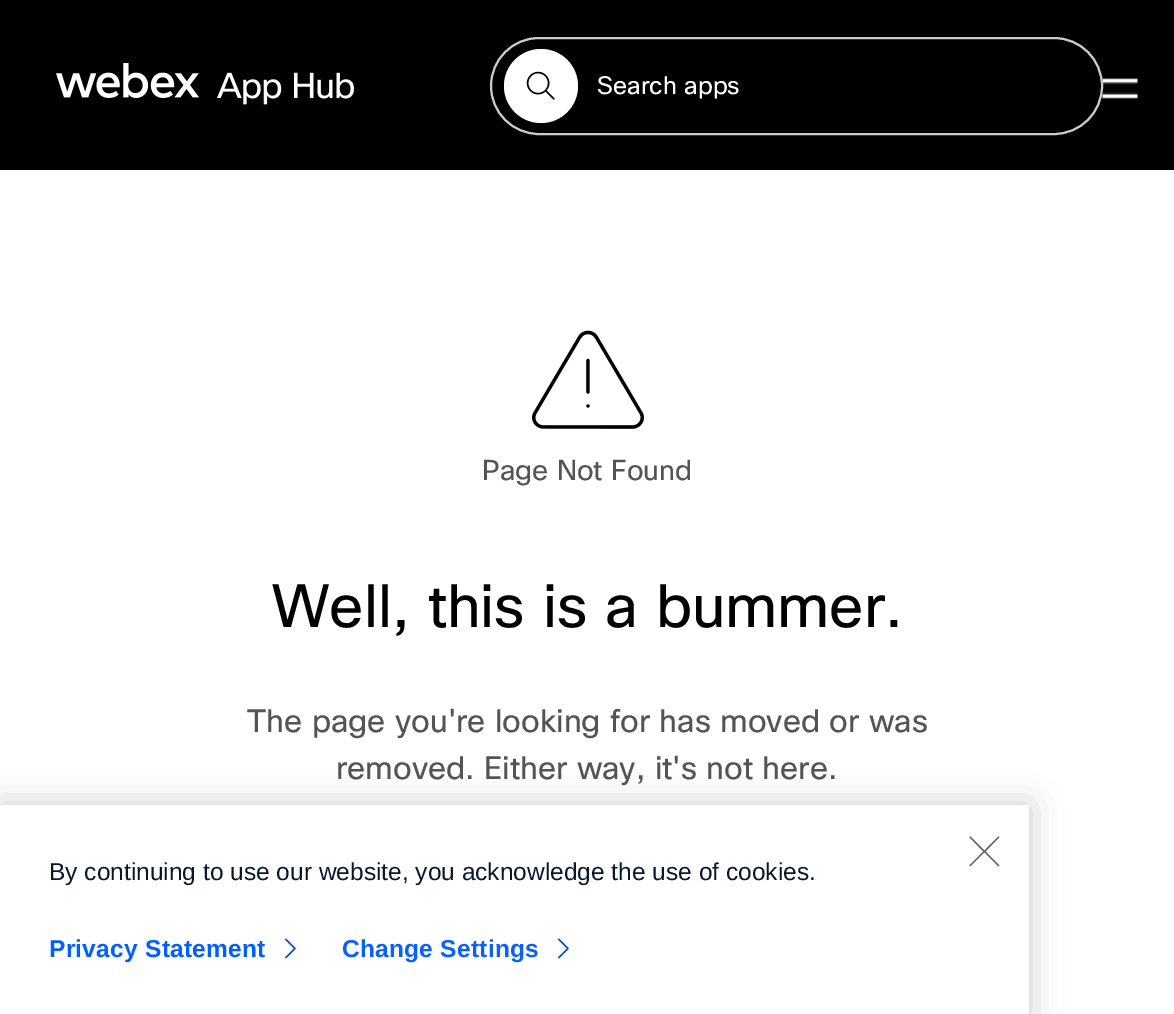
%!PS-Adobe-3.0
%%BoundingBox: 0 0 1174 1014
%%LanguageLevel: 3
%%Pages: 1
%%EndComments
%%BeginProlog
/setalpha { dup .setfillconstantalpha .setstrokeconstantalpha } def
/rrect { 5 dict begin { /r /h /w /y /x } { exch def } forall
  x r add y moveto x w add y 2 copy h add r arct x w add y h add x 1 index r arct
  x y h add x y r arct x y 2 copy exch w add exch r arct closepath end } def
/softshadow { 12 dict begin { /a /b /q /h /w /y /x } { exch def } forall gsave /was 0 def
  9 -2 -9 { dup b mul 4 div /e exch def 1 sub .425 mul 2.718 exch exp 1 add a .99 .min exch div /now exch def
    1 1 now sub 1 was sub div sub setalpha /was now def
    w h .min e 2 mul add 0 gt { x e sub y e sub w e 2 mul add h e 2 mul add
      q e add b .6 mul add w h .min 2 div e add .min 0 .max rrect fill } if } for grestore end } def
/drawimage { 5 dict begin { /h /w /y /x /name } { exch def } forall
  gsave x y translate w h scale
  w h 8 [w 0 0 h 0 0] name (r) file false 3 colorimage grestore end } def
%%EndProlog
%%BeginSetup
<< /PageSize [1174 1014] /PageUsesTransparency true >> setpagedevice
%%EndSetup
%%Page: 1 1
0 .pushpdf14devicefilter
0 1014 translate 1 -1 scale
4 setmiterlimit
1 setgray
0 0 1174 1014 rectfill
0 setgray
0 0 1174 170 rectfill
(images/1.raw) 56 63 298 42 drawimage
(images/3.raw) 1102 78 36 21 drawimage
0.8 setgray
2 setlinewidth
491 38 611 96 48 rrect stroke
1 setgray
newpath 541 86 37 0 360 arc closepath fill
(images/2.raw) 526 71 29 29 drawimage
(images/4.raw) 532 330 112 99 drawimage
0 setgray
0 805 1029 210 0 16 0.2 softshadow
1 setgray
0 805 1029 209 rectfill
(images/5.raw) 969 836 31 31 drawimage
(images/6.raw) 284 938 12 21 drawimage
(images/6.raw) 557 938 12 21 drawimage
/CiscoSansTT-Regular [24.5 0 0 -24.5 0 0] selectfont
597 94 moveto (Search apps) show
/CiscoSansTT-Regular [28 0 0 -28 0 0] selectfont
0.329 setgray
482 480 moveto (Page Not Found) show
/CiscoSansTT-Regular [59.5 0 0 -59.5 0 0] selectfont
0 setgray
272 627 moveto (Well, this is a bummer.) show
/CiscoSansTT-Regular [31.5 0 0 -31.5 0 0] selectfont
0.329 setgray
247 732 moveto (The page you're looking for has moved or was) show
336 779 moveto (removed. Either way, it's not here.) show
/LiberationSans-Regular [24.5 0 0 -24.5 0 0] selectfont
0.027 0.094 0.176 setrgbcolor
49 880 moveto (By continuing to use our website, you acknowledge the use of cookies.) show
/LiberationSans-Bold [24.5 0 0 -24.5 0 0] selectfont
0 0.376 1 setrgbcolor
49 957 moveto 0.25 0 (Privacy Statement) ashow
0.039 0.376 1 setrgbcolor
342 957 moveto 0.25 0 (Change Settings) ashow
.poppdf14devicefilter showpage
%%EOF
